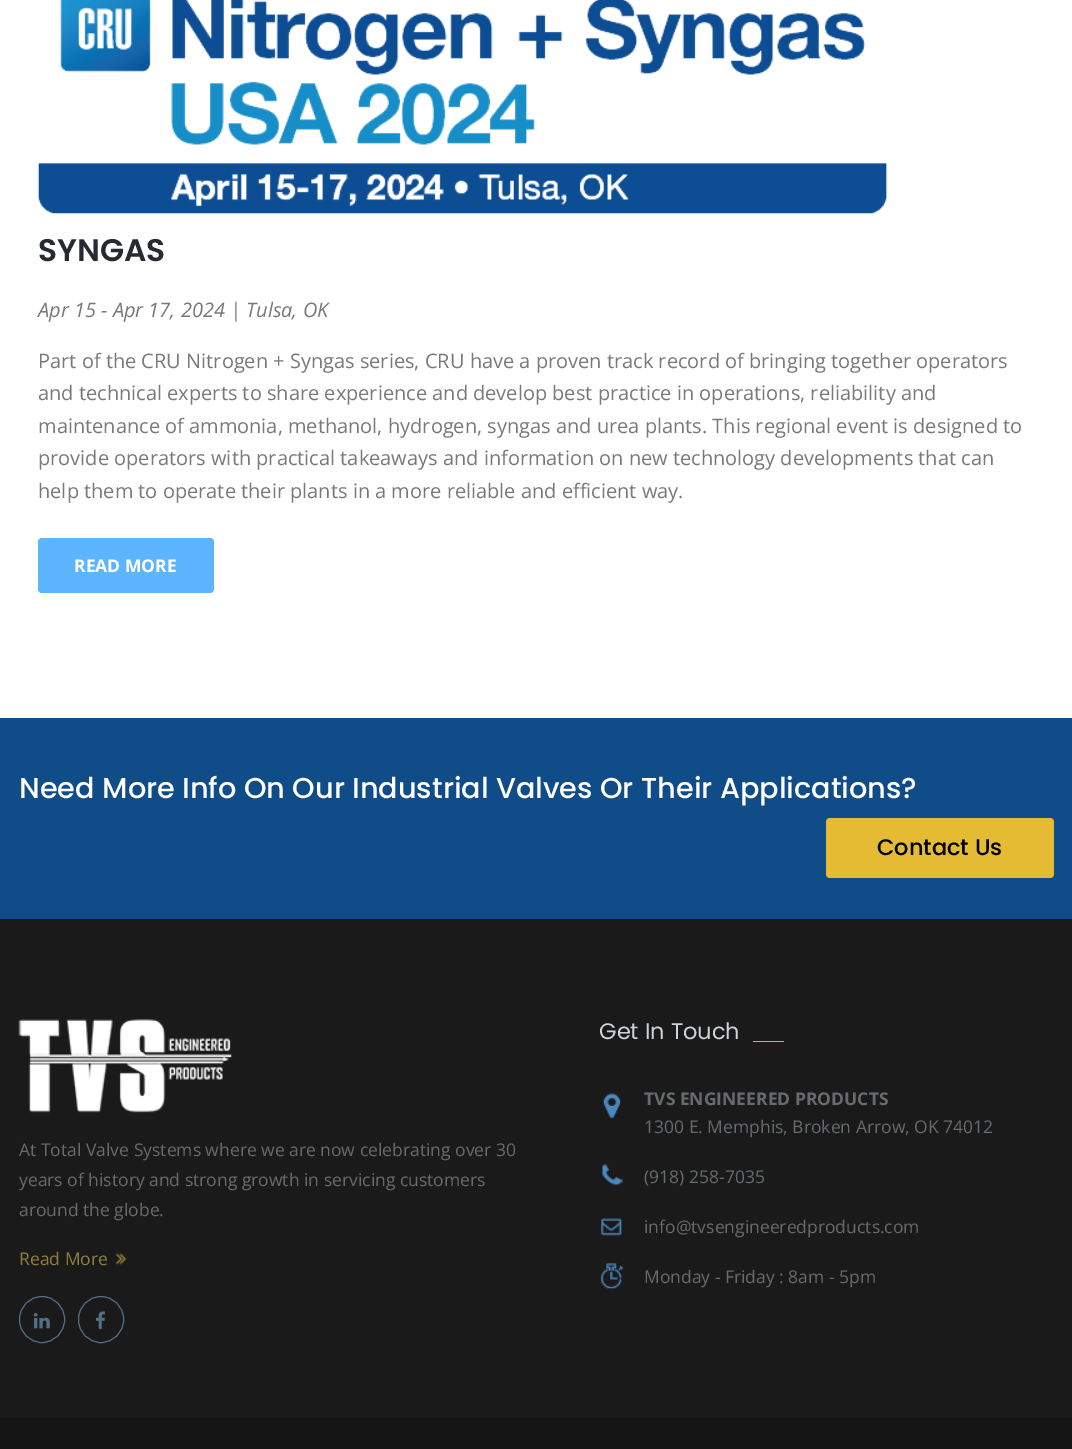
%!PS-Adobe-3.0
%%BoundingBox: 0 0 1072 1449
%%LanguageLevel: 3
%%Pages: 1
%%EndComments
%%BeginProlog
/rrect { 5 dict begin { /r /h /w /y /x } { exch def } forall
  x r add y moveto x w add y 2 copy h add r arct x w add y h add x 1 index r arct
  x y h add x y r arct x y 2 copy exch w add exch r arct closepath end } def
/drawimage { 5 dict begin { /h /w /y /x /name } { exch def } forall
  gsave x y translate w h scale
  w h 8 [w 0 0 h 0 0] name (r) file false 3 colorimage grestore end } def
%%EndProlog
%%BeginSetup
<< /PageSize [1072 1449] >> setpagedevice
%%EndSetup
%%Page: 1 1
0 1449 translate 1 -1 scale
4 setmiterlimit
1 setgray
0 0 1072 1449 rectfill
(images/1.raw) 37 0 851 214 drawimage
0.365 0.71 1 setrgbcolor
38 538 176 55 4 rrect fill
0.059 0.298 0.533 setrgbcolor
0 718 1072 201 rectfill
0.898 0.733 0.204 setrgbcolor
826 818 228 60 4 rrect fill
0.102 setgray
0 919 1072 499 rectfill
(images/2.raw) 18 1019 214 94 drawimage
(images/3.raw) 116 1253 11 12 drawimage
0.329 0.431 0.522 setrgbcolor
19.5 1296.5 45 46 22.5 rrect stroke
(images/4.raw) 33 1313 17 16 drawimage
78.5 1296.5 45 46 22.5 rrect stroke
(images/5.raw) 96 1311 9 18 drawimage
0.839 0.702 0.29 setrgbcolor
753 1041 31 1 rectfill
(images/6.raw) 603 1093 18 26 drawimage
(images/7.raw) 602 1164 21 22 drawimage
(images/8.raw) 601 1218 21 18 drawimage
(images/9.raw) 600 1263 24 26 drawimage
0.082 setgray
0 1418 1072 31 rectfill
/Poppins-SemiBold [31.25 0 0 -31.25 0 0] selectfont
0.153 0.169 0.192 setrgbcolor
38 261 moveto (SYNGAS) show
/OpenSans-Italic [20 0 0 -20 0 0] selectfont
0.475 setgray
38 317 moveto (Apr 15 - Apr 17, 2024 | Tulsa, OK) show
/OpenSans-Regular [20 0 0 -20 0 0] selectfont
38 368 moveto (Part of the CRU Nitrogen + Syngas series, CRU have a proven track record of bringing together operators) show
38 400 moveto (and technical experts to share experience and develop best practice in operations, reliability and) show
38 433 moveto (maintenance of ammonia, methanol, hydrogen, syngas and urea plants. This regional event is designed to) show
38 465 moveto (provide operators with practical takeaways and information on new technology developments that can) show
38 498 moveto (help them to operate their plants in a more reliable and efficient way.) show
/OpenSans-Bold [17.5 0 0 -17.5 0 0] selectfont
1 setgray
74 572 moveto (READ MORE) show
/Poppins-Medium [28.75 0 0 -28.75 0 0] selectfont
19 798 moveto (Need More Info On Our Industrial Valves Or Their Applications?) show
/Poppins-Medium [22.5 0 0 -22.5 0 0] selectfont
0 setgray
877 855 moveto (Contact Us) show
/OpenSans-Regular [17.5 0 0 -17.5 0 0] selectfont
0.404 0.42 0.431 setrgbcolor
19 1156 moveto (At Total Valve Systems where we are now celebrating over 30) show
19 1186 moveto (years of history and strong growth in servicing customers) show
19 1216 moveto (around the globe.) show
0.573 0.498 0.235 setrgbcolor
19 1265 moveto (Read More) show
/Poppins-Regular [22.5 0 0 -22.5 0 0] selectfont
0.82 0.831 0.843 setrgbcolor
599 1039 moveto (Get In Touch) show
/OpenSans-Bold [17.5 0 0 -17.5 0 0] selectfont
0.404 0.42 0.431 setrgbcolor
644 1105 moveto (TVS ENGINEERED PRODUCTS) show
/OpenSans-Regular [17.5 0 0 -17.5 0 0] selectfont
644 1133 moveto (1300 E. Memphis, Broken Arrow, OK 74012) show
644 1183 moveto (\(918\) 258-7035) show
644 1233 moveto (info@tvsengineeredproducts.com) show
644 1283 moveto (Monday - Friday : 8am - 5pm) show
showpage
%%EOF
